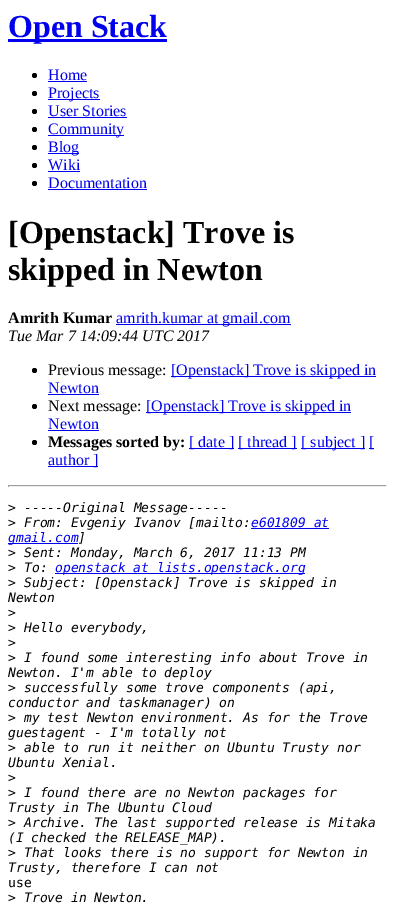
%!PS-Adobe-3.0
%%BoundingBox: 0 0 395 911
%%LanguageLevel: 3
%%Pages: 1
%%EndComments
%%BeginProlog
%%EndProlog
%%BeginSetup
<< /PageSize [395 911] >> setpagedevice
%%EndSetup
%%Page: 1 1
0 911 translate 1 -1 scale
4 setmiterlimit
1 setgray
0 0 395 911 rectfill
0 0 0.933 setrgbcolor
8 39 159 3 rectfill
0 setgray
newpath 34.5 75.5 2.5 0 360 arc closepath fill
0 0 0.933 setrgbcolor
48 81 39 1 rectfill
0 setgray
newpath 34.5 93.5 2.5 0 360 arc closepath fill
0 0 0.933 setrgbcolor
48 99 52 1 rectfill
0 setgray
newpath 34.5 111.5 2.5 0 360 arc closepath fill
0 0 0.933 setrgbcolor
48 117 79 1 rectfill
0 setgray
newpath 34.5 129.5 2.5 0 360 arc closepath fill
0 0 0.933 setrgbcolor
48 135 76 1 rectfill
0 setgray
newpath 34.5 147.5 2.5 0 360 arc closepath fill
0 0 0.933 setrgbcolor
48 153 31 1 rectfill
0 setgray
newpath 34.5 165.5 2.5 0 360 arc closepath fill
0 0 0.933 setrgbcolor
48 171 32 1 rectfill
0 setgray
newpath 34.5 183.5 2.5 0 360 arc closepath fill
0 0 0.933 setrgbcolor
48 189 99 1 rectfill
116 324 175 1 rectfill
0 setgray
newpath 34.5 370.5 2.5 0 360 arc closepath fill
0 0 0.933 setrgbcolor
171 376 205 1 rectfill
48 394 51 1 rectfill
0 setgray
newpath 34.5 406.5 2.5 0 360 arc closepath fill
0 0 0.933 setrgbcolor
146 412 205 1 rectfill
48 430 51 1 rectfill
0 setgray
newpath 34.5 442.5 2.5 0 360 arc closepath fill
0 0 0.933 setrgbcolor
189 448 45 1 rectfill
238 448 59 1 rectfill
301 448 64 1 rectfill
369 448 5 1 rectfill
48 466 50 1 rectfill
0.624 setgray
8 485 379 1 rectfill
0.933 setgray
386 485 1 2 rectfill
8 486 379 1 rectfill
0.624 setgray
8 485 1 2 rectfill
0 0 0.933 setrgbcolor
251 528 78 1 rectfill
8 543 70 1 rectfill
55 573 250 1 rectfill
/LiberationSerif-Bold [32 0 0 -32 0 0] selectfont
8 37 moveto (Open Stack) show
/LiberationSerif-Regular [16 0 0 -16 0 0] selectfont
48 80 moveto (Home) show
48 98 moveto (Projects) show
48 116 moveto (User Stories) show
48 134 moveto (Community) show
48 152 moveto (Blog) show
48 170 moveto (Wiki) show
48 188 moveto (Documentation) show
/LiberationSerif-Bold [32 0 0 -32 0 0] selectfont
0 setgray
8 243 moveto ([Openstack] Trove is) show
8 280 moveto (skipped in Newton) show
/LiberationSerif-Bold [16 0 0 -16 0 0] selectfont
8 323 moveto (Amrith Kumar) show
/LiberationSerif-Regular [16 0 0 -16 0 0] selectfont
0 0 0.933 setrgbcolor
116 323 moveto (amrith.kumar at gmail.com) show
/LiberationSerif-Italic [16 0 0 -16 0 0] selectfont
0 setgray
8 341 moveto (Tue Mar 7 14:09:44 UTC 2017) show
/LiberationSerif-Regular [16 0 0 -16 0 0] selectfont
48 375 moveto (Previous message:) show
0 0 0.933 setrgbcolor
171 375 moveto ([Openstack] Trove is skipped in) show
48 393 moveto (Newton) show
0 setgray
48 411 moveto (Next message:) show
0 0 0.933 setrgbcolor
146 411 moveto ([Openstack] Trove is skipped in) show
48 429 moveto (Newton) show
/LiberationSerif-Bold [16 0 0 -16 0 0] selectfont
0 setgray
48 447 moveto (Messages sorted by:) show
/LiberationSerif-Regular [16 0 0 -16 0 0] selectfont
0 0 0.933 setrgbcolor
189 447 moveto ([ date ]) show
238 447 moveto ([ thread ]) show
301 447 moveto ([ subject ]) show
369 447 moveto ([) show
48 465 moveto (author ]) show
/DejaVuSansMono-Regular [13 0 0 -13 0 0] selectfont
0 setgray
8 512 moveto (>) show
/DejaVuSansMono-Italic [13 0 0 -13 0 0] selectfont
24 512 moveto (-----Original Message-----) show
/DejaVuSansMono-Regular [13 0 0 -13 0 0] selectfont
8 527 moveto (>) show
/DejaVuSansMono-Italic [13 0 0 -13 0 0] selectfont
24 527 moveto (From: Evgeniy Ivanov [mailto:) show
0 0 0.933 setrgbcolor
251 527 moveto (e601809 at) show
8 542 moveto (gmail.com) show
0 setgray
78 542 moveto (]) show
/DejaVuSansMono-Regular [13 0 0 -13 0 0] selectfont
8 557 moveto (>) show
/DejaVuSansMono-Italic [13 0 0 -13 0 0] selectfont
24 557 moveto (Sent: Monday, March 6, 2017 11:13 PM) show
/DejaVuSansMono-Regular [13 0 0 -13 0 0] selectfont
8 572 moveto (>) show
/DejaVuSansMono-Italic [13 0 0 -13 0 0] selectfont
24 572 moveto (To:) show
0 0 0.933 setrgbcolor
55 572 moveto (openstack at lists.openstack.org) show
/DejaVuSansMono-Regular [13 0 0 -13 0 0] selectfont
0 setgray
8 587 moveto (>) show
/DejaVuSansMono-Italic [13 0 0 -13 0 0] selectfont
24 587 moveto (Subject: [Openstack] Trove is skipped in) show
8 602 moveto (Newton) show
/DejaVuSansMono-Regular [13 0 0 -13 0 0] selectfont
8 617 moveto (>) show
8 632 moveto (>) show
/DejaVuSansMono-Italic [13 0 0 -13 0 0] selectfont
24 632 moveto (Hello everybody,) show
/DejaVuSansMono-Regular [13 0 0 -13 0 0] selectfont
8 647 moveto (>) show
8 662 moveto (>) show
/DejaVuSansMono-Italic [13 0 0 -13 0 0] selectfont
24 662 moveto (I found some interesting info about Trove in) show
8 677 moveto (Newton. I'm able to deploy) show
/DejaVuSansMono-Regular [13 0 0 -13 0 0] selectfont
8 692 moveto (>) show
/DejaVuSansMono-Italic [13 0 0 -13 0 0] selectfont
24 692 moveto (successfully some trove components \(api,) show
8 707 moveto (conductor and taskmanager\) on) show
/DejaVuSansMono-Regular [13 0 0 -13 0 0] selectfont
8 722 moveto (>) show
/DejaVuSansMono-Italic [13 0 0 -13 0 0] selectfont
24 722 moveto (my test Newton environment. As for the Trove) show
8 737 moveto (guestagent - I'm totally not) show
/DejaVuSansMono-Regular [13 0 0 -13 0 0] selectfont
8 752 moveto (>) show
/DejaVuSansMono-Italic [13 0 0 -13 0 0] selectfont
24 752 moveto (able to run it neither on Ubuntu Trusty nor) show
8 767 moveto (Ubuntu Xenial.) show
/DejaVuSansMono-Regular [13 0 0 -13 0 0] selectfont
8 782 moveto (>) show
8 797 moveto (>) show
/DejaVuSansMono-Italic [13 0 0 -13 0 0] selectfont
24 797 moveto (I found there are no Newton packages for) show
8 812 moveto (Trusty in The Ubuntu Cloud) show
/DejaVuSansMono-Regular [13 0 0 -13 0 0] selectfont
8 827 moveto (>) show
/DejaVuSansMono-Italic [13 0 0 -13 0 0] selectfont
24 827 moveto (Archive. The last supported release is Mitaka) show
8 842 moveto (\(I checked the RELEASE_MAP\).) show
/DejaVuSansMono-Regular [13 0 0 -13 0 0] selectfont
8 857 moveto (>) show
/DejaVuSansMono-Italic [13 0 0 -13 0 0] selectfont
24 857 moveto (That looks there is no support for Newton in) show
8 872 moveto (Trusty, therefore I can not) show
/DejaVuSansMono-Regular [13 0 0 -13 0 0] selectfont
8 887 moveto (use) show
8 902 moveto (>) show
/DejaVuSansMono-Italic [13 0 0 -13 0 0] selectfont
24 902 moveto (Trove in Newton.) show
showpage
%%EOF
